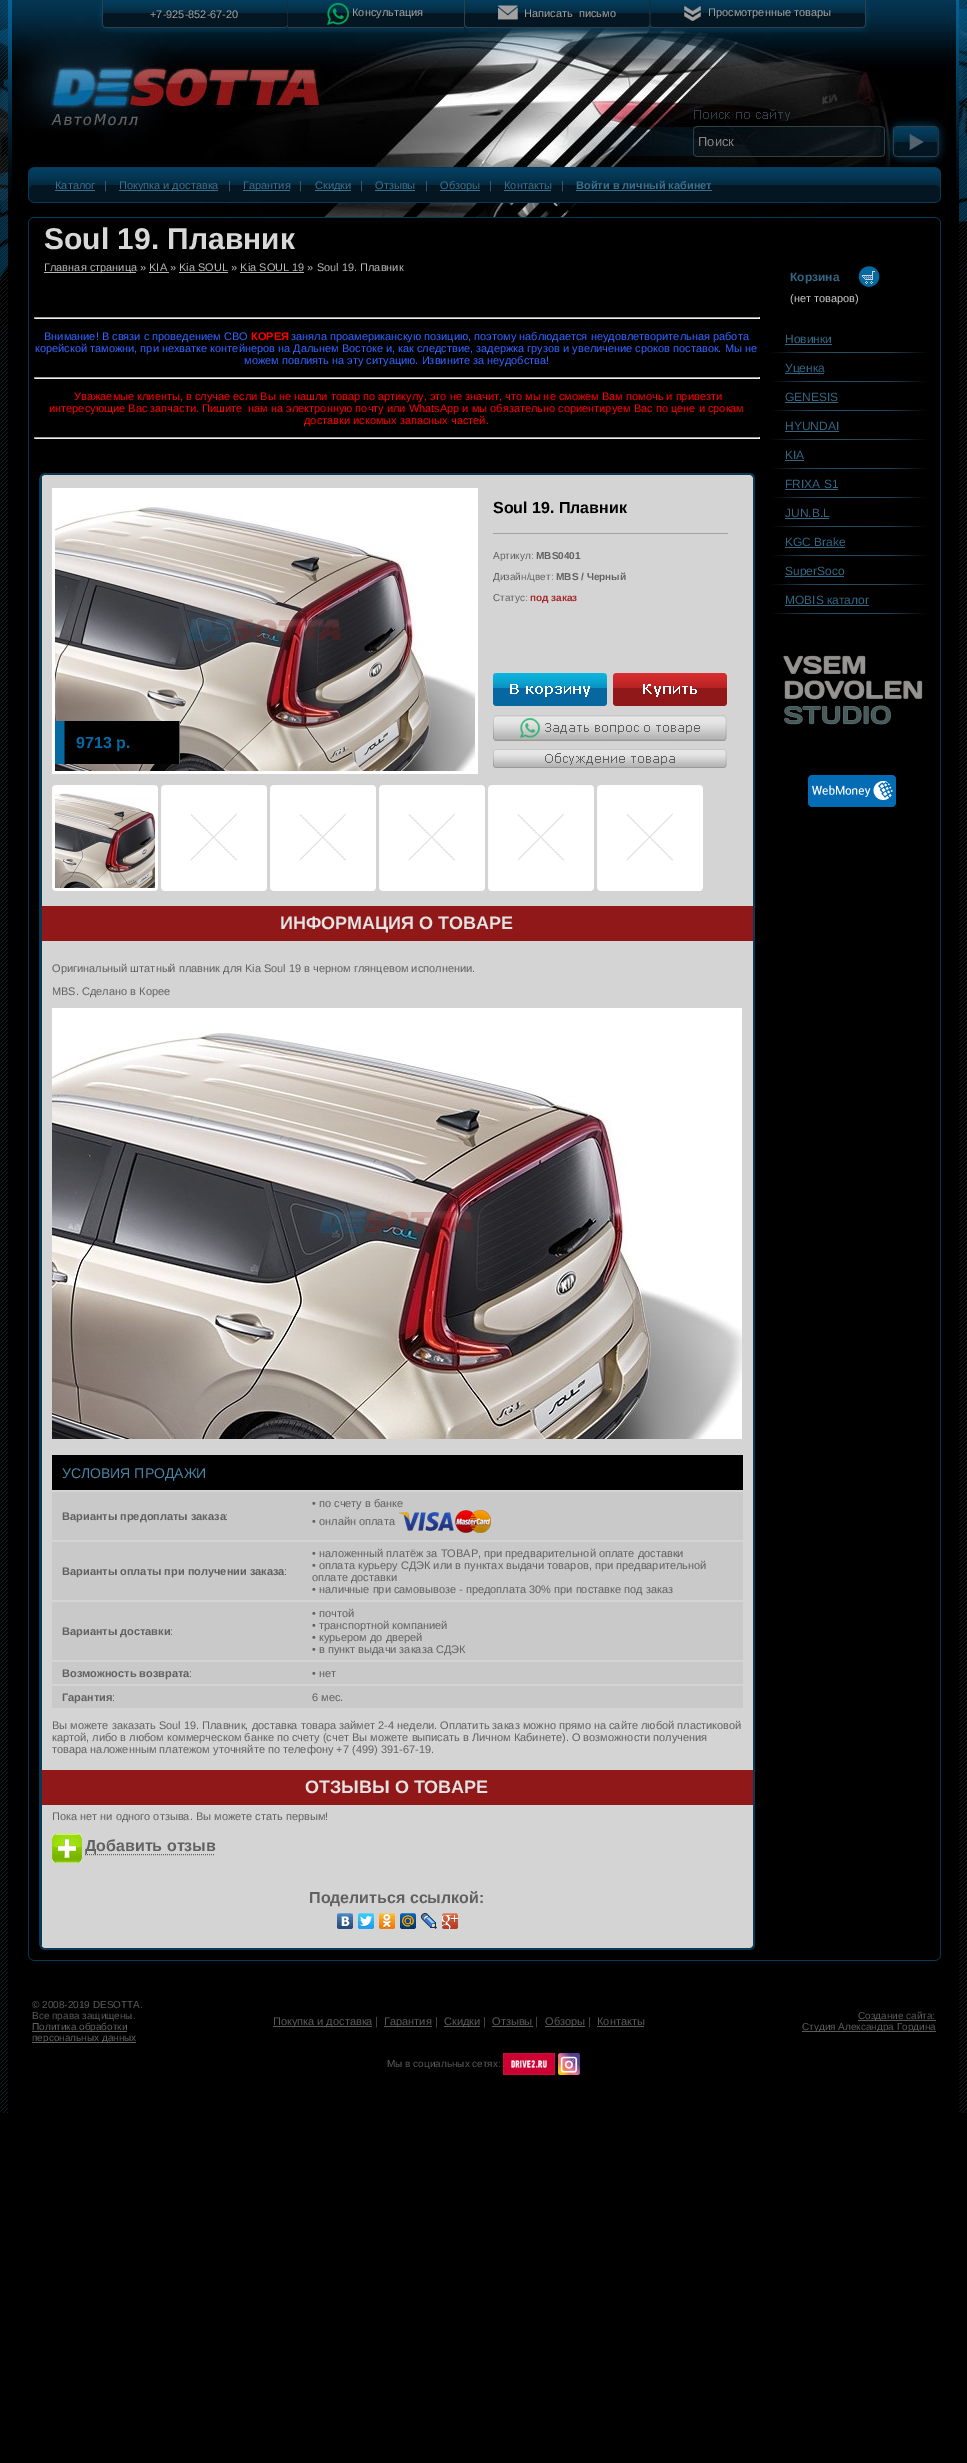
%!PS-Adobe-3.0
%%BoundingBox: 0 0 967 2463
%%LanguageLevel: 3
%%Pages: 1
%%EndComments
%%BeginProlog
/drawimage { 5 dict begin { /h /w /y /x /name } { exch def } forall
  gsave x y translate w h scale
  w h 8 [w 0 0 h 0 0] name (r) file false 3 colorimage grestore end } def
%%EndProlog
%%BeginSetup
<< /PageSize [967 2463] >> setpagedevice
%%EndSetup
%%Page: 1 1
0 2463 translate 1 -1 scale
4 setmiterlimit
0 setgray
0 0 967 2463 rectfill
(images/11.raw) 12 0 681 167 drawimage
(images/1.raw) 98 0 190 33 drawimage
(images/2.raw) 288 0 176 33 drawimage
(images/3.raw) 327 3 22 22 drawimage
(images/4.raw) 464 0 186 33 drawimage
(images/5.raw) 498 5 20 15 drawimage
(images/12.raw) 693 0 263 126 drawimage
(images/6.raw) 650 0 220 33 drawimage
(images/7.raw) 684 6 17 15 drawimage
(images/8.raw) 0 324 8 1789 drawimage
(images/9.raw) 0 0 8 324 drawimage
(images/10.raw) 8 0 4 195 drawimage
(images/13.raw) 693 126 192 31 drawimage
(images/14.raw) 885 126 8 31 drawimage
(images/15.raw) 893 126 46 31 drawimage
(images/16.raw) 939 126 8 31 drawimage
(images/17.raw) 693 157 250 10 drawimage
(images/18.raw) 12 167 28 36 drawimage
(images/19.raw) 40 167 888 36 drawimage
0.22 0.439 0.565 setrgbcolor
55 190 40 1 rectfill
119 190 99 1 rectfill
243 190 47 1 rectfill
315 190 36 1 rectfill
375 190 40 1 rectfill
440 190 40 1 rectfill
504 190 47 1 rectfill
576 190 136 1 rectfill
(images/20.raw) 928 167 28 36 drawimage
(images/21.raw) 28 203 913 19 drawimage
0.031 0.216 0.322 setrgbcolor
28 222 1 1733 rectfill
0.718 setgray
44 272 92 1 rectfill
149 272 20 1 rectfill
179 272 49 1 rectfill
240 272 64 1 rectfill
0.624 setgray
34 317 726 1 rectfill
0.933 setgray
759 317 1 2 rectfill
34 318 726 1 rectfill
0.624 setgray
34 317 1 2 rectfill
34 377 726 1 rectfill
0.933 setgray
759 377 1 2 rectfill
34 378 726 1 rectfill
0.624 setgray
34 377 1 2 rectfill
34 437 726 1 rectfill
0.933 setgray
759 437 1 2 rectfill
34 438 726 1 rectfill
0.624 setgray
34 437 1 2 rectfill
(images/22.raw) 39 473 716 5 drawimage
0.031 0.227 0.341 setrgbcolor
39 478 3 1467 rectfill
0.831 setgray
42 478 711 1467 rectfill
0.635 setgray
493 533 235 1 rectfill
(images/23.raw) 493 673 114 33 drawimage
(images/24.raw) 613 673 114 33 drawimage
(images/25.raw) 493 715 234 26 drawimage
(images/26.raw) 493 749 234 19 drawimage
1 setgray
55 488 420 19 rectfill
52 488 3 283 rectfill
(images/27.raw) 55 507 420 264 drawimage
0.024 0.412 0.635 setrgbcolor
55 721 9 43 rectfill
(images/28.raw) 64 721 116 43 drawimage
1 setgray
475 488 3 283 rectfill
52 771 426 3 rectfill
(images/29.raw) 52 785 106 106 drawimage
(images/30.raw) 55 793 100 95 drawimage
(images/29.raw) 161 785 106 106 drawimage
(images/31.raw) 190 808 59 53 drawimage
(images/29.raw) 270 785 106 106 drawimage
(images/31.raw) 299 808 59 53 drawimage
(images/29.raw) 379 785 106 106 drawimage
(images/31.raw) 408 808 59 53 drawimage
(images/29.raw) 488 785 106 106 drawimage
(images/31.raw) 517 808 59 53 drawimage
(images/29.raw) 597 785 106 106 drawimage
(images/31.raw) 626 808 59 53 drawimage
0.565 0.094 0.098 setrgbcolor
42 906 711 35 rectfill
(images/32.raw) 52 1008 690 431 drawimage
0 setgray
52 1455 691 35 rectfill
0.788 setgray
52 1492 691 48 rectfill
(images/33.raw) 399 1510 92 23 drawimage
52 1542 691 58 rectfill
52 1602 691 58 rectfill
52 1662 691 22 rectfill
52 1686 691 22 rectfill
0.565 0.094 0.098 setrgbcolor
42 1770 711 35 rectfill
(images/34.raw) 52 1833 30 30 drawimage
0.38 setgray
[1 1] 0 setdash
newpath 85 1854.5 moveto 215 1854.5 lineto stroke
(images/35.raw) 337 1913 16 16 drawimage
(images/36.raw) 358 1913 16 16 drawimage
(images/37.raw) 379 1913 16 16 drawimage
(images/38.raw) 400 1913 16 16 drawimage
(images/39.raw) 421 1913 16 16 drawimage
(images/40.raw) 442 1913 16 16 drawimage
0.031 0.227 0.341 setrgbcolor
753 478 2 1467 rectfill
(images/41.raw) 39 1945 716 5 drawimage
(images/42.raw) 858 266 22 21 drawimage
(images/43.raw) 773 352 154 1 drawimage
0.2 0.4 0.514 setrgbcolor
785 344 47 1 rectfill
(images/43.raw) 773 381 154 1 drawimage
785 373 39 1 rectfill
(images/43.raw) 773 410 154 1 drawimage
785 402 53 1 rectfill
(images/43.raw) 773 439 154 1 drawimage
785 431 54 1 rectfill
(images/43.raw) 773 468 154 1 drawimage
785 460 19 1 rectfill
(images/43.raw) 773 497 154 1 drawimage
785 489 53 1 rectfill
(images/43.raw) 773 526 154 1 drawimage
785 518 44 1 rectfill
(images/43.raw) 773 555 154 1 drawimage
785 547 60 1 rectfill
(images/43.raw) 773 584 154 1 drawimage
785 576 59 1 rectfill
(images/43.raw) 773 613 154 1 drawimage
785 605 84 1 rectfill
(images/44.raw) 783 655 140 70 drawimage
(images/45.raw) 808 775 88 32 drawimage
0.031 0.216 0.325 setrgbcolor
940 222 1 1733 rectfill
(images/46.raw) 28 1955 913 6 drawimage
0.38 setgray
32 2031 95 1 rectfill
32 2042 104 1 rectfill
0.357 setgray
273 2026 99 1 rectfill
384 2026 48 1 rectfill
444 2026 36 1 rectfill
492 2026 41 1 rectfill
545 2026 40 1 rectfill
597 2026 47 1 rectfill
858 2020 78 1 rectfill
802 2031 134 1 rectfill
(images/47.raw) 503 2053 52 22 drawimage
(images/48.raw) 558 2053 22 22 drawimage
(images/49.raw) 956 0 3 195 drawimage
(images/50.raw) 959 264 8 1849 drawimage
(images/51.raw) 959 0 8 264 drawimage
/LiberationSans-Regular [11 0 0 -11 0 0] selectfont
0.635 0.631 0.631 setrgbcolor
150 18 moveto (+7-925-852-67-20) show
352 16 moveto (Консультация) show
524 17 moveto (Написать  письмо) show
708 16 moveto (Просмотренные товары) show
/LiberationSans-Regular [13 0 0 -13 0 0] selectfont
0.529 0.522 0.522 setrgbcolor
698 146 moveto (Поиск) show
/LiberationSans-Regular [11 0 0 -11 0 0] selectfont
0.22 0.439 0.565 setrgbcolor
55 189 moveto (Каталог) show
104 189 moveto (|) show
119 189 moveto (Покупка и доставка) show
228 189 moveto (|) show
243 189 moveto (Гарантия) show
299 189 moveto (|) show
315 189 moveto (Скидки) show
360 189 moveto (|) show
375 189 moveto (Отзывы) show
425 189 moveto (|) show
440 189 moveto (Обзоры) show
489 189 moveto (|) show
504 189 moveto (Контакты) show
561 189 moveto (|) show
/LiberationSans-Bold [11 0 0 -11 0 0] selectfont
576 189 moveto (Войти в личный кабинет) show
/LiberationSans-Bold [30 0 0 -30 0 0] selectfont
0.847 setgray
44 249 moveto (Soul 19. Плавник) show
/LiberationSans-Regular [11 0 0 -11 0 0] selectfont
0.718 setgray
44 271 moveto (Главная страница » KIA » Kia SOUL » Kia SOUL 19 » Soul 19. Плавник) show
0.2 0.4 1 setrgbcolor
44 340 moveto (Внимание! В связи с проведением СВО) show
/LiberationSans-Bold [11 0 0 -11 0 0] selectfont
1 0 0 setrgbcolor
251 340 moveto (КОРЕЯ) show
/LiberationSans-Regular [11 0 0 -11 0 0] selectfont
0.2 0.4 1 setrgbcolor
291 340 moveto (заняла проамериканскую позицию, поэтому наблюдается неудовлетворительная работа) show
35 352 moveto (корейской таможни, при нехватке контейнеров на Дальнем Востоке и, как следствие, задержка грузов и увеличение сроков поставок. Мы не) show
244 364 moveto (можем повлиять на эту ситуацию. Извините за неудобства!) show
1 0 0 setrgbcolor
74 400 moveto (Уважаемые клиенты, в случае если Вы не нашли товар по артикулу, это не значит, что мы не сможем Вам помочь и привезти) show
49 412 moveto (интересующие Вас запчасти. Пишите  нам на электронную почту или WhatsApp и мы обязательно сориентируем Вас по цене и срокам) show
304 424 moveto (доставки искомых запасных частей.) show
/LiberationSans-Bold [16 0 0 -16 0 0] selectfont
0 setgray
493 513 moveto (Soul 19. Плавник) show
/LiberationSans-Regular [10 0 0 -10 0 0] selectfont
0.38 setgray
493 559 moveto (Артикул:) show
/LiberationSans-Bold [10 0 0 -10 0 0] selectfont
536 559 moveto (MBS0401) show
/LiberationSans-Regular [10 0 0 -10 0 0] selectfont
493 580 moveto (Дизайн/цвет:) show
/LiberationSans-Bold [10 0 0 -10 0 0] selectfont
556 580 moveto (MBS / Черный) show
/LiberationSans-Regular [10 0 0 -10 0 0] selectfont
493 601 moveto (Статус:) show
/LiberationSans-Bold [10 0 0 -10 0 0] selectfont
0.647 0.165 0.165 setrgbcolor
530 601 moveto (под заказ) show
/LiberationSans-Bold [16 0 0 -16 0 0] selectfont
0.024 0.412 0.635 setrgbcolor
76 748 moveto (9713 р.) show
/LiberationSans-Bold [18 0 0 -18 0 0] selectfont
0.89 setgray
280 929 moveto (ИНФОРМАЦИЯ О ТОВАРЕ) show
/LiberationSans-Regular [11 0 0 -11 0 0] selectfont
0.38 setgray
52 972 moveto (Оригинальный штатный плавник для Kia Soul 19 в черном глянцевом исполнении.) show
52 995 moveto (MBS. Сделано в Корее) show
/LiberationSans-Regular [14 0 0 -14 0 0] selectfont
0.29 0.525 0.659 setrgbcolor
62 1478 moveto (УСЛОВИЯ ПРОДАЖИ) show
/LiberationSans-Bold [11 0 0 -11 0 0] selectfont
0.38 setgray
62 1520 moveto (Варианты предоплаты заказа) show
/LiberationSans-Regular [11 0 0 -11 0 0] selectfont
225 1520 moveto (:) show
312 1507 moveto (• по счету в банке) show
312 1525 moveto (• онлайн оплата) show
/LiberationSans-Bold [11 0 0 -11 0 0] selectfont
62 1575 moveto (Варианты оплаты при получении заказа) show
/LiberationSans-Regular [11 0 0 -11 0 0] selectfont
284 1575 moveto (:) show
312 1557 moveto (• наложенный платёж за ТОВАР, при предварительной оплате доставки) show
312 1569 moveto (• оплата курьеру СДЭК или в пунктах выдачи товаров, при предварительной) show
312 1581 moveto (оплате доставки) show
312 1593 moveto (• наличные при самовывозе - предоплата 30% при поставке под заказ) show
/LiberationSans-Bold [11 0 0 -11 0 0] selectfont
62 1635 moveto (Варианты доставки) show
/LiberationSans-Regular [11 0 0 -11 0 0] selectfont
170 1635 moveto (:) show
312 1617 moveto (• почтой) show
312 1629 moveto (• транспортной компанией) show
312 1641 moveto (• курьером до дверей) show
312 1653 moveto (• в пункт выдачи заказа СДЭК) show
/LiberationSans-Bold [11 0 0 -11 0 0] selectfont
62 1677 moveto (Возможность возврата) show
/LiberationSans-Regular [11 0 0 -11 0 0] selectfont
189 1677 moveto (:) show
312 1677 moveto (• нет) show
/LiberationSans-Bold [11 0 0 -11 0 0] selectfont
62 1701 moveto (Гарантия) show
/LiberationSans-Regular [11 0 0 -11 0 0] selectfont
112 1701 moveto (:) show
312 1701 moveto (6 мес.) show
52 1729 moveto (Вы можете заказать Soul 19. Плавник, доставка товара займет 2-4 недели. Оплатить заказ можно прямо на сайте любой пластиковой) show
52 1741 moveto (картой, либо в любом коммерческом банке по счету \(счет Вы можете выписать в Личном Кабинете\). О возможности получения) show
52 1753 moveto (товара наложенным платежом уточняйте по телефону +7 \(499\) 391-67-19.) show
/LiberationSans-Bold [18 0 0 -18 0 0] selectfont
0.89 setgray
305 1793 moveto (ОТЗЫВЫ О ТОВАРЕ) show
/LiberationSans-Regular [11 0 0 -11 0 0] selectfont
0.38 setgray
52 1820 moveto (Пока нет ни одного отзыва. Вы можете стать первым!) show
/LiberationSans-Bold [16 0 0 -16 0 0] selectfont
85 1851 moveto (Добавить отзыв) show
309 1903 moveto (Поделиться ссылкой:) show
/LiberationSans-Bold [12 0 0 -12 0 0] selectfont
0.2 0.4 0.514 setrgbcolor
790 281 moveto (Корзина) show
/LiberationSans-Regular [11 0 0 -11 0 0] selectfont
0.8 setgray
790 302 moveto (\(нет товаров\)) show
/LiberationSans-Regular [12 0 0 -12 0 0] selectfont
0.2 0.4 0.514 setrgbcolor
785 343 moveto (Новинки) show
785 372 moveto (Уценка) show
785 401 moveto (GENESIS) show
785 430 moveto (HYUNDAI) show
785 459 moveto (KIA) show
785 488 moveto (FRIXA S1) show
785 517 moveto (JUN.B.L) show
785 546 moveto (KGC Brake) show
785 575 moveto (SuperSoco) show
785 604 moveto (MOBIS каталог) show
/LiberationSans-Regular [10 0 0 -10 0 0] selectfont
0.357 setgray
32 2008 moveto (© 2008-2019 DESOTTA.) show
32 2019 moveto (Все права защищены.) show
0.38 setgray
32 2030 moveto (Политика обработки) show
32 2041 moveto (персональных данных) show
/LiberationSans-Regular [11 0 0 -11 0 0] selectfont
0.357 setgray
273 2025 moveto (Покупка и доставка |) show
384 2025 moveto (Гарантия |) show
444 2025 moveto (Скидки |) show
492 2025 moveto (Отзывы |) show
545 2025 moveto (Обзоры |) show
597 2025 moveto (Контакты) show
/LiberationSans-Regular [10 0 0 -10 0 0] selectfont
858 2019 moveto (Создание сайта:) show
802 2030 moveto (Студия Александра Гордина) show
387 2067 moveto (Мы в социальных сетях:) show
showpage
%%EOF
